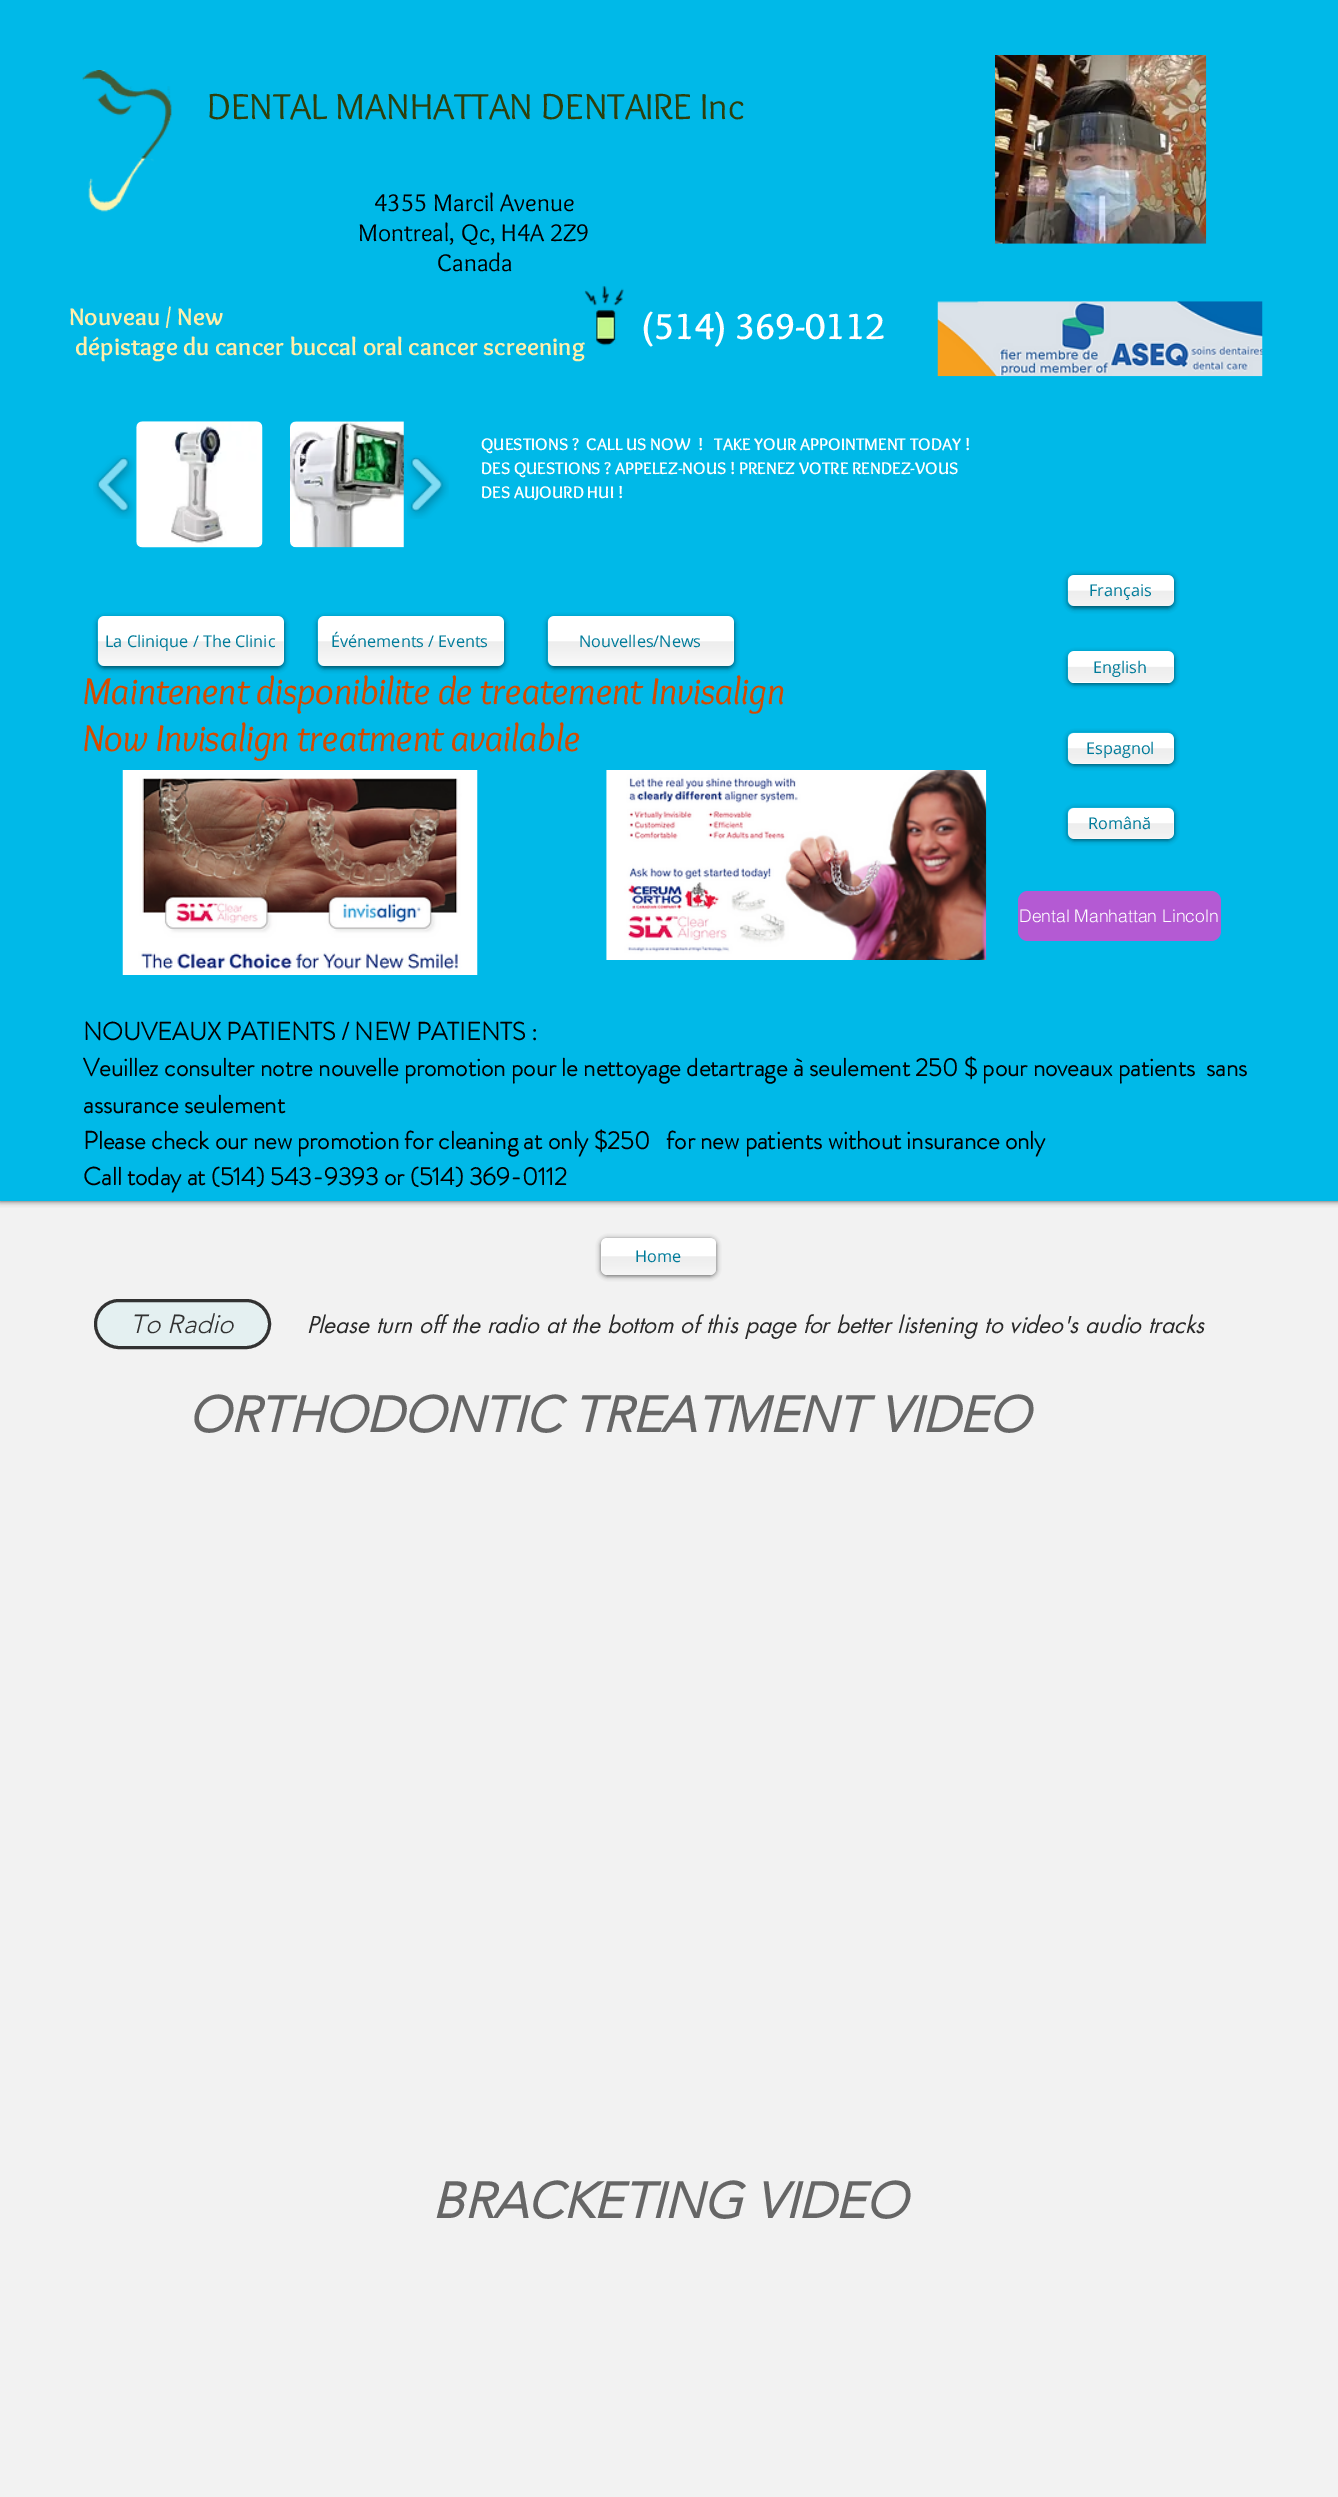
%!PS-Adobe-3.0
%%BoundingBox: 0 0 1338 2497
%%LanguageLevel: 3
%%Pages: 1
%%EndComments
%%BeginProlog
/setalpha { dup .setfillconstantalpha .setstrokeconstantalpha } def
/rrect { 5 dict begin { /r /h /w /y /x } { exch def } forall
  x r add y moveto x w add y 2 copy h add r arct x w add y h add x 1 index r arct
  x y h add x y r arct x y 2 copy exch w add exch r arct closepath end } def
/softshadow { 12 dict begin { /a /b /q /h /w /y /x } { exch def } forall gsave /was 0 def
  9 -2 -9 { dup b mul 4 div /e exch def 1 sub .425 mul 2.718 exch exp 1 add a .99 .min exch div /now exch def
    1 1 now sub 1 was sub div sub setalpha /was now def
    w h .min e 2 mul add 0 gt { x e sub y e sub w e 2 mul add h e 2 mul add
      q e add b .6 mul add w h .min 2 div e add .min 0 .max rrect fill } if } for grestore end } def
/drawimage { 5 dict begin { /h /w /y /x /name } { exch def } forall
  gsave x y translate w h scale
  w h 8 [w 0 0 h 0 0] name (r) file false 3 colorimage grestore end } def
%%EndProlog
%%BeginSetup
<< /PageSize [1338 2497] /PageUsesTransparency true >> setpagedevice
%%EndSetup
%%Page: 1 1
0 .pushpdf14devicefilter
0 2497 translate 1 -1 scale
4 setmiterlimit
0.949 setgray
0 0 1338 2497 rectfill
0 setgray
0 0 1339 1201 0 3 0.7 softshadow
0 0.725 0.91 setrgbcolor
0 0 1338 1201 rectfill
(images/1.raw) 82 70 90 142 drawimage
(images/2.raw) 995 55 212 189 drawimage
(images/4.raw) 937 301 326 76 drawimage
(images/5.raw) 93 455 42 64 drawimage
(images/6.raw) 136 421 127 127 drawimage
(images/7.raw) 290 421 114 127 drawimage
(images/8.raw) 407 455 42 64 drawimage
0 setgray
1068 576 106 32 6 2.5 0.6 softshadow
1 setgray
1068 575 106 31 6 rrect fill
(images/9.raw) 1067 575 107 31 drawimage
0 setgray
98 618 186 50 6 2.5 0.6 softshadow
1 setgray
98 616 186 50 6 rrect fill
(images/10.raw) 97 616 187 50 drawimage
0 setgray
318 618 186 50 6 2.5 0.6 softshadow
1 setgray
318 616 186 50 6 rrect fill
(images/10.raw) 317 616 187 50 drawimage
0 setgray
548 618 186 50 6 2.5 0.6 softshadow
1 setgray
548 616 186 50 6 rrect fill
(images/10.raw) 547 616 187 50 drawimage
0 setgray
1068 653 106 31 6 2.5 0.6 softshadow
1 setgray
1068 651 106 32 6 rrect fill
(images/11.raw) 1067 651 107 31 drawimage
0 setgray
1068 734 106 31 6 2.5 0.6 softshadow
1 setgray
1068 733 106 31 6 rrect fill
(images/12.raw) 1067 732 107 32 drawimage
(images/13.raw) 122 770 356 205 drawimage
(images/14.raw) 606 770 381 190 drawimage
0 setgray
1068 809 106 31 6 2.5 0.6 softshadow
1 setgray
1068 808 106 31 6 rrect fill
(images/12.raw) 1067 807 107 32 drawimage
0.706 0.353 0.827 setrgbcolor
1018 891 203 50 10 rrect fill
0 setgray
601 1239 115 37 6 2.5 0.6 softshadow
1 setgray
601 1238 115 37 6 rrect fill
(images/15.raw) 601 1239 115 36 drawimage
0.894 0.941 0.945 setrgbcolor
95.5 1300.5 174 47 23.5 rrect gsave fill grestore
0.196 setgray
3 setlinewidth
stroke
/Overlock-Regular [37.5 0 0 -37.5 0 0] selectfont
0.176 0.247 0.047 setrgbcolor
207 119 moveto (DENTAL MANHATTAN DENTAIRE Inc) show
/Overlock-Regular [25 0 0 -25 0 0] selectfont
0 setgray
374 211 moveto (4355 Marcil Avenue) show
358 241 moveto (Montreal, Qc, H4A 2Z9) show
437 271 moveto (Canada) show
/Overlock-Bold [25 0 0 -25 0 0] selectfont
1 0.937 0.667 setrgbcolor
69 325 moveto (Nouveau / New) show
75 355 moveto (dépistage du cancer buccal oral cancer screening) show
(images/3.raw) 584 285 40 61 drawimage
/Overlock-Bold [37.5 0 0 -37.5 0 0] selectfont
1 setgray
641 339 moveto (\(514\) 369-0112) show
/Overlock-Bold [17.5 0 0 -17.5 0 0] selectfont
481 450 moveto (QUESTIONS ?  CALL US NOW  !   TAKE YOUR APPOINTMENT TODAY !) show
481 474 moveto (DES QUESTIONS ? APPELEZ-NOUS ! PRENEZ VOTRE RENDEZ-VOUS) show
481 498 moveto (DES AUJOURD HUI !) show
/OpenSans-Regular [16.25 0 0 -16.25 0 0] selectfont
0 0.482 0.604 setrgbcolor
1089 596 moveto (Français) show
105 647 moveto (La Clinique / The Clinic) show
331 647 moveto (Événements / Events) show
579 647 moveto (Nouvelles/News) show
1093 673 moveto (English) show
/Overlock-Italic [38.75 0 0 -38.75 0 0] selectfont
0.827 0.29 0 setrgbcolor
82 704 moveto (Maintenent disponibilite de treatement Invisalign) show
82 751 moveto (Now Invisalign treatment available) show
/OpenSans-Regular [16.25 0 0 -16.25 0 0] selectfont
0 0.482 0.604 setrgbcolor
1086 754 moveto (Espagnol) show
1088 829 moveto (Română) show
/helvetica-Light [17.5 0 0 -17.5 0 0] selectfont
1 setgray
1019 922 moveto (Dental Manhattan Lincoln) show
/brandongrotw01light-Bold [25 0 0 -25 0 0] selectfont
0 setgray
83 1040 moveto (NOUVEAUX PATIENTS / NEW PATIENTS :) show
83 1076 moveto (Veuillez consulter notre nouvelle promotion pour le nettoyage detartrage à seulement 250 $ pour noveaux patients  sans) show
83 1113 moveto (assurance seulement) show
83 1149 moveto (Please check our new promotion for cleaning at only $250   for new patients without insurance only) show
83 1185 moveto (Call today at \(514\) 543-9393 or \(514\) 369-0112) show
/OpenSans-Regular [16.25 0 0 -16.25 0 0] selectfont
0 0.482 0.604 setrgbcolor
635 1262 moveto (Home) show
/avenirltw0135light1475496-LightItalic [26 0 0 -26 0 0] selectfont
0.196 setgray
130 1333 moveto (To Radio) show
/futura-Italic [22.5 0 0 -22.5 0 0] selectfont
0.161 setgray
307 1333 moveto (Please turn off the radio at the bottom of this page for better listening to video's audio tracks) show
/avenirltw0135light1475496-BoldItalic [50 0 0 -50 0 0] selectfont
0.4 setgray
188 1432 moveto (ORTHODONTIC TREATMENT VIDEO) show
432 2218 moveto (BRACKETING VIDEO) show
.poppdf14devicefilter showpage
%%EOF
